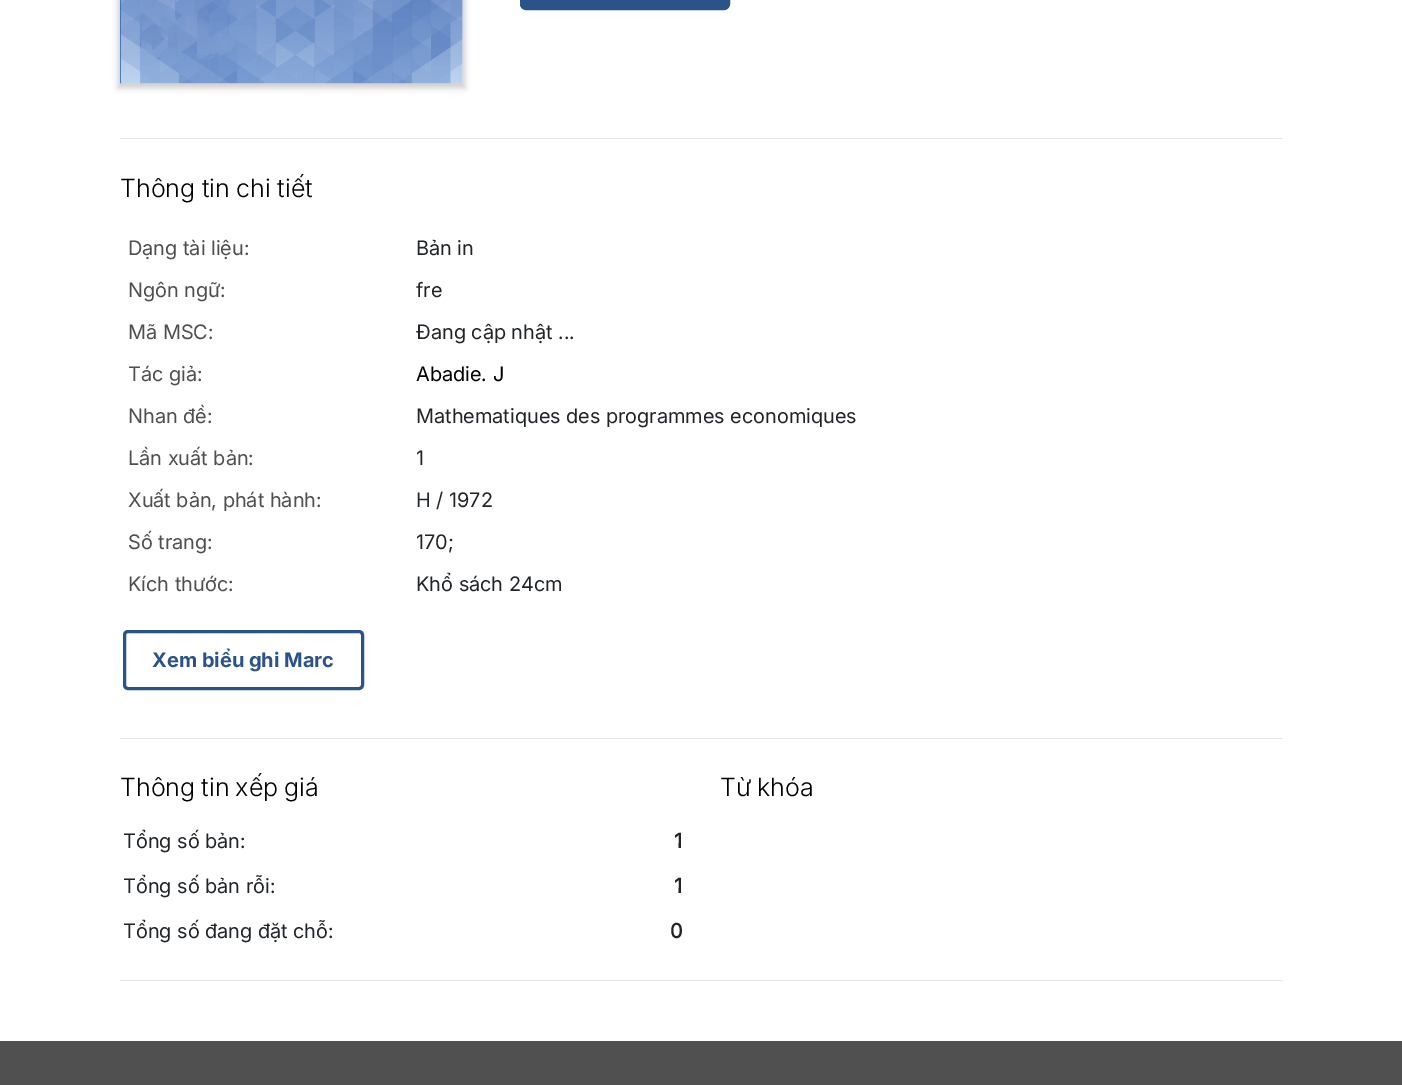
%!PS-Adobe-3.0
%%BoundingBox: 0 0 1402 1085
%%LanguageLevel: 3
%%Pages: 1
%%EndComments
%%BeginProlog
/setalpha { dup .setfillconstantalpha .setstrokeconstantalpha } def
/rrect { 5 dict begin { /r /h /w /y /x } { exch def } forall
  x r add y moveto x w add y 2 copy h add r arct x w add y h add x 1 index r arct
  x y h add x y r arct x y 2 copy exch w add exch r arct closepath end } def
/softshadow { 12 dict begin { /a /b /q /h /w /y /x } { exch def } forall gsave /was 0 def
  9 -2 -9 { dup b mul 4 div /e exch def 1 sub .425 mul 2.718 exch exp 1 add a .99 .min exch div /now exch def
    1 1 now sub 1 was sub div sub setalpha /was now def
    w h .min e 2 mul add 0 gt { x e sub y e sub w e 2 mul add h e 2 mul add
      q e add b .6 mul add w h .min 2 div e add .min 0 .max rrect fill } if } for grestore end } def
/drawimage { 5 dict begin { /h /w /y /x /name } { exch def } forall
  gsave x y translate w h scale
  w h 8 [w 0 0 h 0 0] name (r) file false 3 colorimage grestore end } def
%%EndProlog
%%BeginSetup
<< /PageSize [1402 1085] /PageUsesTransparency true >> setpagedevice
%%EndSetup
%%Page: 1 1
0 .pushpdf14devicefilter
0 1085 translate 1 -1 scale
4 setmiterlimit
1 setgray
0 0 1402 1085 rectfill
0.8 setgray
118 -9 347 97 0 3 1 softshadow
(images/1.raw) 120 0 343 84 drawimage
0.169 0.322 0.537 setrgbcolor
520.5 -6.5 209 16 5.5 rrect gsave fill grestore
stroke
0.902 setgray
120 138 1163 1 rectfill
0.169 0.322 0.537 setrgbcolor
3 setlinewidth
124.5 631.5 238 57 3.5 rrect stroke
0.902 setgray
120 738 1163 1 rectfill
120 980 1163 1 rectfill
0.314 setgray
0 1041 1402 44 rectfill
/Inter-Light [25 0 0 -25 0 0] selectfont
0 setgray
120 197 moveto -0.5 0 32 (Thông tin chi tiết) widthshow
/Inter-Regular [20 0 0 -20 0 0] selectfont
0.31 setgray
128 255 moveto (Dạng tài liệu:) show
0.129 0.145 0.161 setrgbcolor
416 255 moveto (Bản in) show
0.31 setgray
128 297 moveto (Ngôn ngữ:) show
0.129 0.145 0.161 setrgbcolor
416 297 moveto (fre) show
0.31 setgray
128 339 moveto (Mã MSC:) show
0.129 0.145 0.161 setrgbcolor
416 339 moveto (Đang cập nhật ...) show
0.31 setgray
128 381 moveto (Tác giả:) show
0 setgray
416 381 moveto (Abadie. J) show
0.31 setgray
128 423 moveto (Nhan đề:) show
0.129 0.145 0.161 setrgbcolor
416 423 moveto (Mathematiques des programmes economiques) show
0.31 setgray
128 465 moveto (Lần xuất bản:) show
0.129 0.145 0.161 setrgbcolor
416 465 moveto (1) show
0.31 setgray
128 507 moveto (Xuất bản, phát hành:) show
0.129 0.145 0.161 setrgbcolor
416 507 moveto (H / 1972) show
0.31 setgray
128 549 moveto (Số trang:) show
0.129 0.145 0.161 setrgbcolor
416 549 moveto (170;) show
0.31 setgray
128 591 moveto (Kích thước:) show
0.129 0.145 0.161 setrgbcolor
416 591 moveto (Khổ sách 24cm) show
/Inter-Bold [20 0 0 -20 0 0] selectfont
0.169 0.322 0.537 setrgbcolor
152 667 moveto (Xem biểu ghi Marc) show
/Inter-Light [25 0 0 -25 0 0] selectfont
0 setgray
120 796 moveto -1 0 32 (Thông tin xếp giá) widthshow
/Inter-Regular [20 0 0 -20 0 0] selectfont
0.129 0.145 0.161 setrgbcolor
123 848 moveto (Tổng số bản:) show
/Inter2-Bold [20 0 0 -20 0 0] selectfont
674 848 moveto (1) show
/Inter-Regular [20 0 0 -20 0 0] selectfont
123 893 moveto (Tổng số bản rỗi:) show
/Inter2-Bold [20 0 0 -20 0 0] selectfont
674 893 moveto (1) show
/Inter-Regular [20 0 0 -20 0 0] selectfont
123 938 moveto (Tổng số đang đặt chỗ:) show
/Inter2-Bold [20 0 0 -20 0 0] selectfont
670 938 moveto (0) show
/Inter-Light [25 0 0 -25 0 0] selectfont
0 setgray
720 796 moveto -1 0 32 (Từ khóa) widthshow
.poppdf14devicefilter showpage
%%EOF
